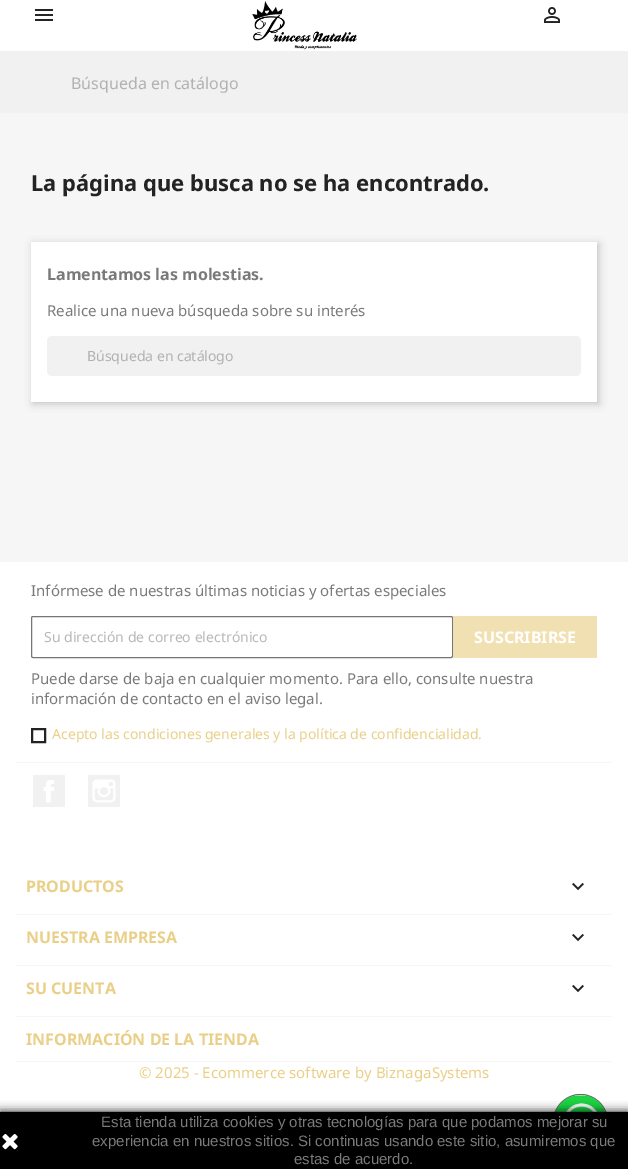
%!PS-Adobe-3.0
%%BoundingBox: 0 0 628 1169
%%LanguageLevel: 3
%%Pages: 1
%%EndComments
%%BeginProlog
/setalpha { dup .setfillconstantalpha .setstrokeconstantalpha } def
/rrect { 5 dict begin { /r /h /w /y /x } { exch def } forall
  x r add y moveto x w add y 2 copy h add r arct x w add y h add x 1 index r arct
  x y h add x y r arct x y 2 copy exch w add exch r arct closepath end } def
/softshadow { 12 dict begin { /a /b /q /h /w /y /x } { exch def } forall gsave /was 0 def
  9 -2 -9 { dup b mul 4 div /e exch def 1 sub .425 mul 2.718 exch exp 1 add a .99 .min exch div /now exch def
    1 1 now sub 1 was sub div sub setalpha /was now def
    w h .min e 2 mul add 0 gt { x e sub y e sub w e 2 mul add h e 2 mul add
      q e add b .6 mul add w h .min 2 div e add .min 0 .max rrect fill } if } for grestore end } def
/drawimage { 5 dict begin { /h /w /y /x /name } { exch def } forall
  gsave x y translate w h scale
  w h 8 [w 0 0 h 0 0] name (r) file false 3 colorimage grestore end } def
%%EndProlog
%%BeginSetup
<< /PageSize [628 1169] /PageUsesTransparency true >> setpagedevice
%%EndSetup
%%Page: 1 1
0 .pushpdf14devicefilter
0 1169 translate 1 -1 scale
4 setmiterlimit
1 setgray
0 0 628 1169 rectfill
0.945 setgray
0 51 628 62 rectfill
(images/1.raw) 35 9 18 12 drawimage
(images/2.raw) 252 1 105 49 drawimage
(images/3.raw) 544 7 16 16 drawimage
0.965 setgray
0 113 628 449 rectfill
0 setgray
33 244 566 160 0 4 0.2 softshadow
1 setgray
31 242 566 160 rectfill
0.945 setgray
47 336 534 40 5 rrect fill
0.965 setgray
16 762 596 1 rectfill
0.463 setgray
31.5 616.5 421 41 1.5 rrect stroke
0.945 0.878 0.694 setrgbcolor
453 616 144 42 rectfill
0.137 setgray
2 setlinewidth
32 729 13 13 rectstroke
0.945 setgray
33 775 32 32 rectfill
(images/4.raw) 43 780 12 23 drawimage
88 775 32 32 rectfill
(images/5.raw) 92 779 24 24 drawimage
0.965 setgray
16 914 596 1 rectfill
(images/6.raw) 572 882 12 9 drawimage
16 965 596 1 rectfill
(images/6.raw) 572 933 12 9 drawimage
16 1016 596 1 rectfill
(images/6.raw) 572 984 12 9 drawimage
16 1061 596 1 rectfill
0.776 0.929 0.816 setrgbcolor
newpath 580.5 1121.5 27.5 0 360 arc closepath fill
0.25 setalpha
0.102 0.718 0.267 setrgbcolor
newpath 580.5 1121.5 27.5 0 360 arc closepath fill
newpath 580.5 1121.5 27 0 360 arc closepath fill
1 setalpha
0.4 setgray
1 setlinewidth
newpath 580.5 1121.5 27 0 360 arc closepath stroke
(images/7.raw) 555 1095 51 17 drawimage
0 setgray
0 1112 628 57 0 5 1 softshadow
0 1112 628 57 rectfill
(images/8.raw) 2 1134 16 16 drawimage
/NotoSans-Regular [16 0 0 -16 0 0] selectfont
0.694 setgray
71 89 moveto (Búsqueda en catálogo) show
/NotoSans-Bold [22 0 0 -22 0 0] selectfont
0.137 setgray
31 191 moveto (La página que busca no se ha encontrado.) show
/NotoSans-Bold [16 0 0 -16 0 0] selectfont
0.478 setgray
47 280 moveto (Lamentamos las molestias.) show
/NotoSans-Regular [15 0 0 -15 0 0] selectfont
47 316 moveto (Realice una nueva búsqueda sobre su interés) show
/NotoSans-Regular [14 0 0 -14 0 0] selectfont
0.694 setgray
87 361 moveto (Búsqueda en catálogo) show
/NotoSans-Regular [15 0 0 -15 0 0] selectfont
0.478 setgray
31 596 moveto (Infórmese de nuestras últimas noticias y ofertas especiales) show
/NotoSans-Regular [14 0 0 -14 0 0] selectfont
0.718 setgray
44 642 moveto (Su dirección de correo electrónico) show
/NotoSans-Bold [16 0 0 -16 0 0] selectfont
1 setgray
474 643 moveto (SUSCRIBIRSE) show
/NotoSans-Regular [15 0 0 -15 0 0] selectfont
0.478 setgray
31 684 moveto (Puede darse de baja en cualquier momento. Para ello, consulte nuestra) show
31 704 moveto (información de contacto en el aviso legal.) show
/NotoSans-Regular [14 0 0 -14 0 0] selectfont
0.914 0.812 0.529 setrgbcolor
52 739 moveto (Acepto las condiciones generales y la política de confidencialidad.) show
/NotoSans-Bold [16 0 0 -16 0 0] selectfont
26 892 moveto (PRODUCTOS) show
26 943 moveto (NUESTRA EMPRESA) show
26 994 moveto (SU CUENTA) show
26 1045 moveto (INFORMACIÓN DE LA TIENDA) show
/NotoSans-Regular [15 0 0 -15 0 0] selectfont
139 1078 moveto (© 2025 - Ecommerce software by BiznagaSystems) show
/LiberationSans-Regular [15 0 0 -15 0 0] selectfont
0.478 setgray
101 1127 moveto (Esta tienda utiliza cookies y otras tecnologías para que podamos mejorar su) show
92 1146 moveto (experiencia en nuestros sitios. Si continuas usando este sitio, asumiremos que) show
294 1164 moveto (estas de acuerdo.) show
.poppdf14devicefilter showpage
%%EOF
